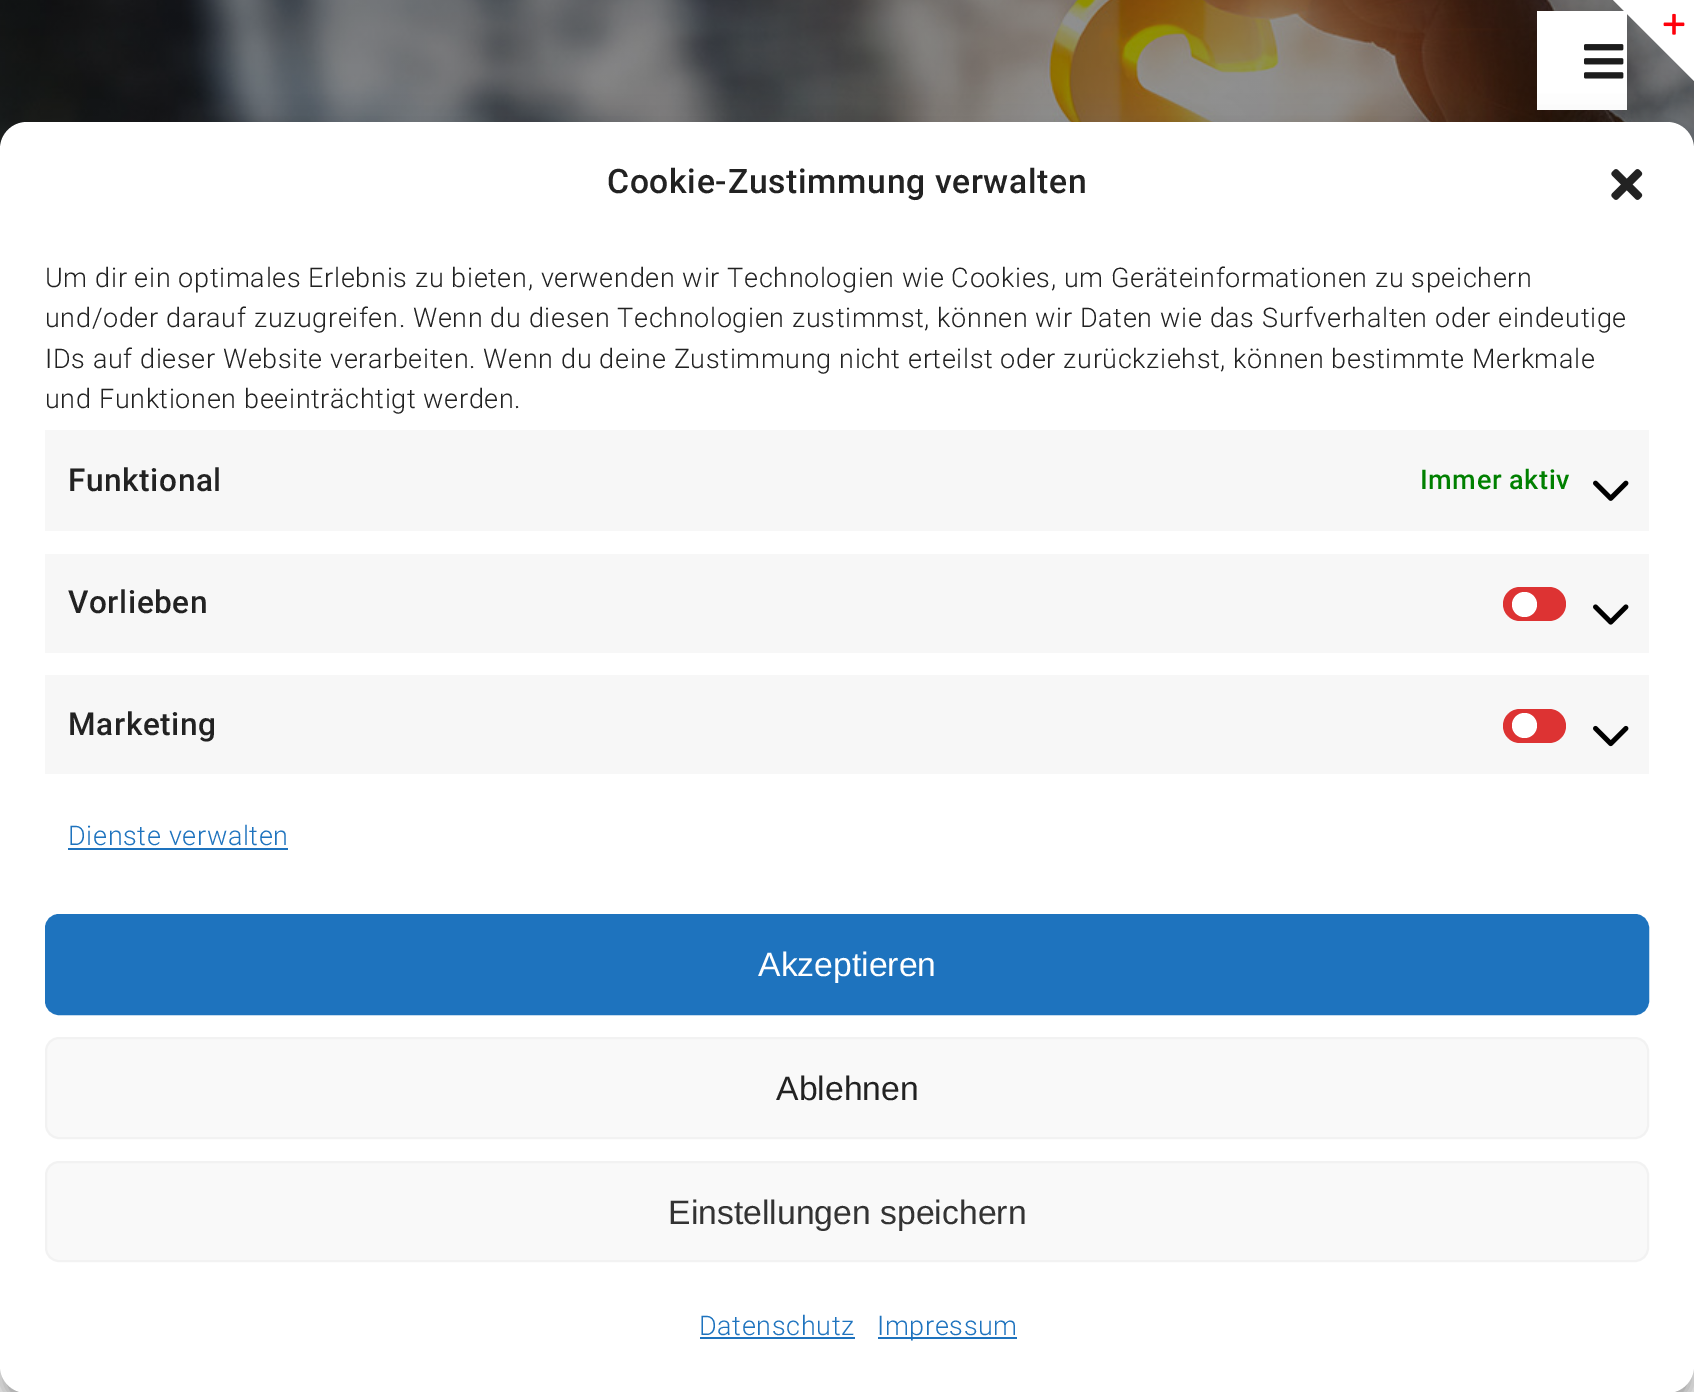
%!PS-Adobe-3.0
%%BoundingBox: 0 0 1694 1392
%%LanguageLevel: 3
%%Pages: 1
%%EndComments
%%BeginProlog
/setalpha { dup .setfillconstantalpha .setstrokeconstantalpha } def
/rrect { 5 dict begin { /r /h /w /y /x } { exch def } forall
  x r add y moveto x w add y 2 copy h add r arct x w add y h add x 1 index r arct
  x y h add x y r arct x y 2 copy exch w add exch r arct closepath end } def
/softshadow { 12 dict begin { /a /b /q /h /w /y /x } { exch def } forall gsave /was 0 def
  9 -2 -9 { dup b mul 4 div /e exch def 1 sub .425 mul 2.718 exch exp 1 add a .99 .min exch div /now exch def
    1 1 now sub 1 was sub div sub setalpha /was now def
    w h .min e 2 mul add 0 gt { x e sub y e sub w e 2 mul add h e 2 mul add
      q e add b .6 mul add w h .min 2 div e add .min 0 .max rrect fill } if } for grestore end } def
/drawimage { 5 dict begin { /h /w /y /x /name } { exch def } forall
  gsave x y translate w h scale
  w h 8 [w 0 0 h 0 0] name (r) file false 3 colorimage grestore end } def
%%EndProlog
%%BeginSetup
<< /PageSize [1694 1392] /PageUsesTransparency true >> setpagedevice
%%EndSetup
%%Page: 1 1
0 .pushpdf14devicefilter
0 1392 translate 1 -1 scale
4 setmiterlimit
1 setgray
0 0 1694 1392 rectfill
(images/1.raw) 0 0 1694 149 drawimage
1537 11 90 99 rectfill
(images/2.raw) 1584 44 40 35 drawimage
0 setgray
0 144 1694 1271 27 22.5 0.19 softshadow
1 setgray
newpath 1613 0 moveto 1694 0 lineto 1694 81 lineto closepath fill
(images/3.raw) 1663 13 22 22 drawimage
0 setgray
0 135 1694 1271 27 7 0.23 softshadow
1 setgray
0 122 1694 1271 27 rrect fill
(images/4.raw) 1611 169 32 31 drawimage
0.969 setgray
45 430 1604 101 rectfill
(images/5.raw) 1593 480 36 21 drawimage
45 554 1604 99 rectfill
0.867 0.2 0.2 setrgbcolor
1503 587 63 34 17 rrect fill
1 setgray
newpath 1524.5 604.5 12.5 0 360 arc closepath fill
(images/6.raw) 1593 604 36 21 drawimage
0.969 setgray
45 675 1604 99 rectfill
0.867 0.2 0.2 setrgbcolor
1503 709 63 34 17 rrect fill
1 setgray
newpath 1524.5 725.5 12.5 0 360 arc closepath fill
(images/7.raw) 1593 725 36 22 drawimage
0.118 0.451 0.745 setrgbcolor
68 848 220 2 rectfill
46 915 1602 99 13 rrect gsave fill grestore
2 setlinewidth
stroke
0.976 setgray
46 1038 1602 100 13 rrect gsave fill grestore
0.949 setgray
stroke
0.976 setgray
46 1162 1602 99 13 rrect gsave fill grestore
0.949 setgray
stroke
0.118 0.451 0.745 setrgbcolor
700 1337 155 2 rectfill
878 1337 139 2 rectfill
/Roboto-Medium [33.75 0 0 -33.75 0 0] selectfont
0.133 setgray
607 193 moveto 0.64 0 (Cookie-Zustimmung verwalten) ashow
/Roboto-Light [27 0 0 -27 0 0] selectfont
45 287 moveto 0.64 0 (Um dir ein optimales Erlebnis zu bieten, verwenden wir Technologien wie Cookies, um Geräteinformationen zu speichern) ashow
45 327 moveto 0.64 0 (und/oder darauf zuzugreifen. Wenn du diesen Technologien zustimmst, können wir Daten wie das Surfverhalten oder eindeutige) ashow
45 368 moveto 0.64 0 (IDs auf dieser Website verarbeiten. Wenn du deine Zustimmung nicht erteilst oder zurückziehst, können bestimmte Merkmale) ashow
45 408 moveto 0.64 0 (und Funktionen beeinträchtigt werden.) ashow
/Roboto-Medium [31.5 0 0 -31.5 0 0] selectfont
68 491 moveto 0.64 0 (Funktional) ashow
/Roboto-Medium [27 0 0 -27 0 0] selectfont
0 0.502 0 setrgbcolor
1420 489 moveto 0.64 0 (Immer aktiv) ashow
/Roboto-Medium [31.5 0 0 -31.5 0 0] selectfont
0.133 setgray
68 613 moveto 0.64 0 (Vorlieben) ashow
68 735 moveto 0.64 0 (Marketing) ashow
/Roboto-Light [27 0 0 -27 0 0] selectfont
0.118 0.451 0.745 setrgbcolor
68 845 moveto 0.64 0 (Dienste verwalten) ashow
/LiberationSans-Regular [33.75 0 0 -33.75 0 0] selectfont
1 setgray
758 976 moveto (Akzeptieren) show
0.133 setgray
776 1100 moveto (Ablehnen) show
0.2 setgray
668 1224 moveto (Einstellungen speichern) show
/Roboto-Light [27 0 0 -27 0 0] selectfont
0.118 0.451 0.745 setrgbcolor
699 1335 moveto 0.64 0 (Datenschutz) ashow
877 1335 moveto 0.64 0 (Impressum) ashow
.poppdf14devicefilter showpage
%%EOF
